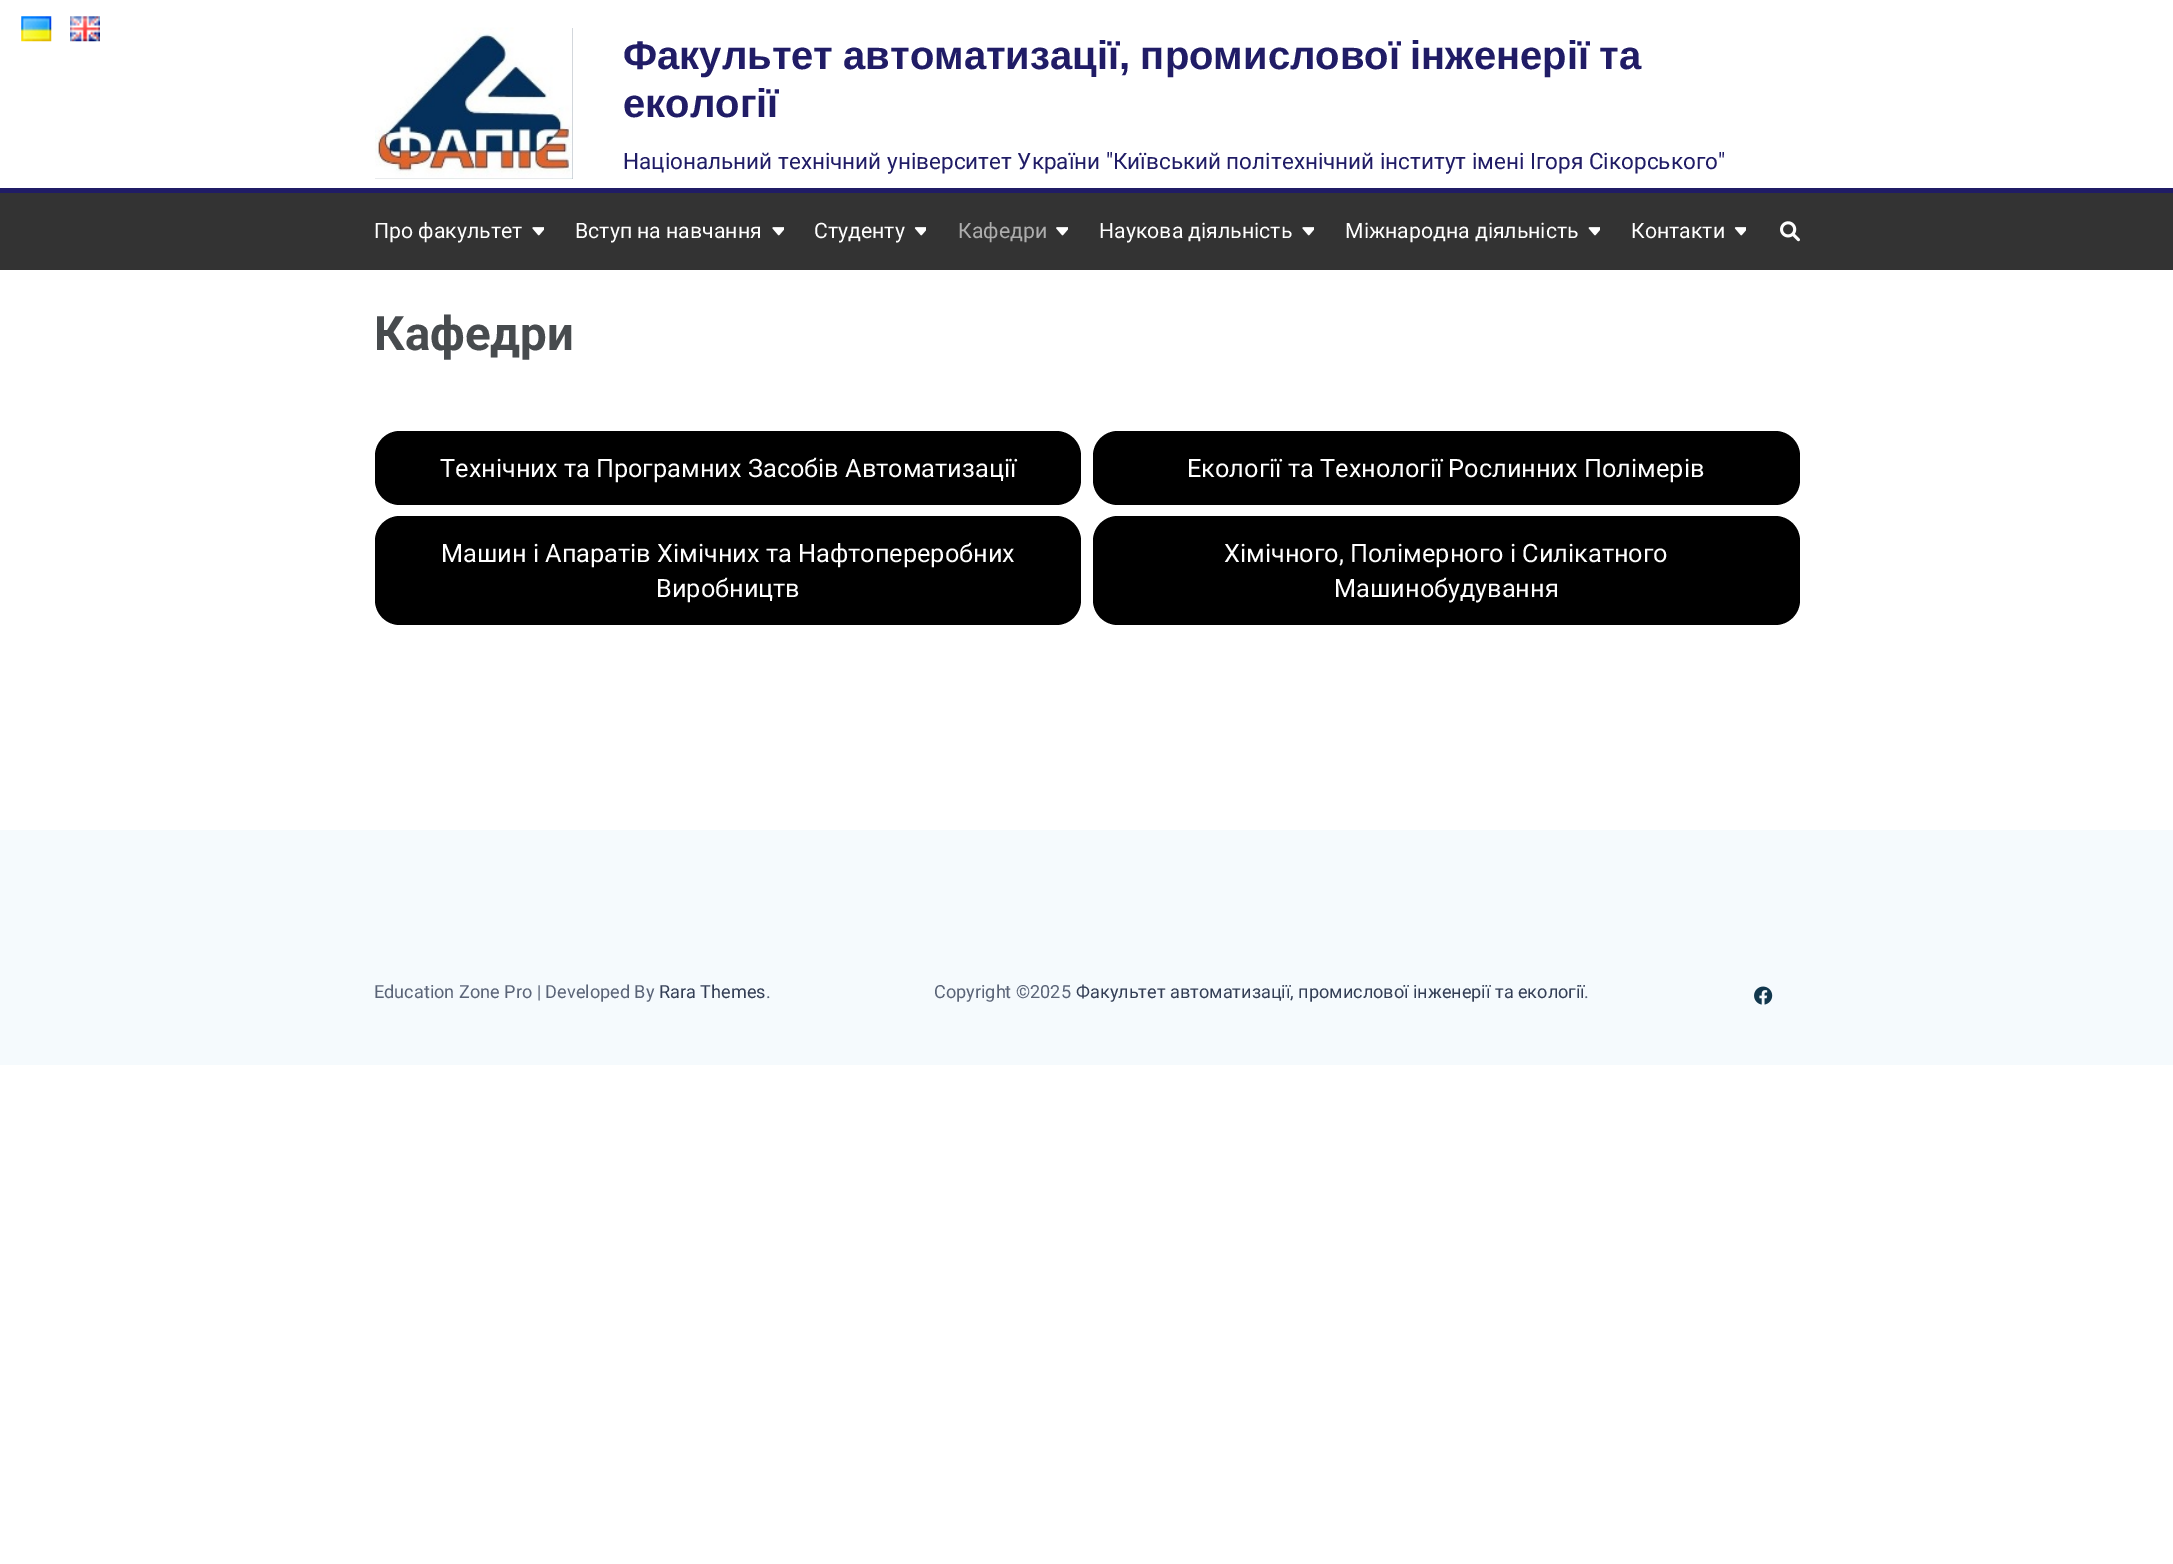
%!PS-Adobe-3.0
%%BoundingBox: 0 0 2173 1564
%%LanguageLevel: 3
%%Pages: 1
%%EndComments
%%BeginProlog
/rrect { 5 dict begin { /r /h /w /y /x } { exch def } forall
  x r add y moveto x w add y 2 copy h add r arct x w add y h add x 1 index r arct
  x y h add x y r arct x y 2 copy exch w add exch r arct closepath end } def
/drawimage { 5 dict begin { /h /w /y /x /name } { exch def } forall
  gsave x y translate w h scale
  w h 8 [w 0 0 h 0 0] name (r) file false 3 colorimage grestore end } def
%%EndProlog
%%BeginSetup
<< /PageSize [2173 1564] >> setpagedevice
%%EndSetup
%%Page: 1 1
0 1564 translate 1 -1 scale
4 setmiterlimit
1 setgray
0 0 2173 1564 rectfill
(images/1.raw) 21 16 31 26 drawimage
(images/2.raw) 70 16 30 26 drawimage
0.125 0.11 0.4 setrgbcolor
0 188 2173 5 rectfill
0.651 0.682 0.722 setrgbcolor
375 28 198 151 rectfill
(images/3.raw) 375 27 198 152 drawimage
0.2 setgray
0 193 2173 77 rectfill
(images/4.raw) 532 227 12 9 drawimage
(images/4.raw) 772 227 12 9 drawimage
(images/5.raw) 914 227 12 9 drawimage
(images/6.raw) 1056 227 12 9 drawimage
(images/4.raw) 1302 227 12 9 drawimage
(images/7.raw) 1588 227 12 9 drawimage
(images/5.raw) 1734 227 12 9 drawimage
(images/8.raw) 1780 221 20 21 drawimage
0 setgray
375 431 706 74 25 rrect fill
1093 431 707 74 25 rrect fill
375 516 706 109 25 rrect fill
1093 516 707 109 25 rrect fill
0.961 0.98 0.992 setrgbcolor
0 830 2173 235 rectfill
(images/9.raw) 1754 986 19 19 drawimage
/LiberationSans-Bold [40 0 0 -40 0 0] selectfont
0.125 0.11 0.4 setrgbcolor
623 69 moveto -1 0 32 (Факультет автоматизації, промислової інженерії та) widthshow
623 117 moveto (екології) show
/Roboto-Regular [22.5 0 0 -22.5 0 0] selectfont
623 169 moveto (Національний технічний університет України "Київський політехнічний інститут імені Ігоря Сікорського") show
/Roboto-Regular [21.25 0 0 -21.25 0 0] selectfont
1 setgray
374 238 moveto (Про факультет) show
575 238 moveto (Вступ на навчання) show
814 238 moveto (Студенту) show
0.678 setgray
958 238 moveto (Кафедри) show
1 setgray
1099 238 moveto (Наукова діяльність) show
1345 238 moveto (Міжнародна діяльність) show
1631 238 moveto (Контакти) show
/Roboto-Bold [47.5 0 0 -47.5 0 0] selectfont
0.278 0.294 0.306 setrgbcolor
374 350 moveto (Кафедри) show
/Roboto-Regular [25.3 0 0 -25.3 0 0] selectfont
1 setgray
440 477 moveto (Технічних та Програмних Засобів Автоматизації) show
1187 477 moveto (Екології та Технології Рослинних Полімерів) show
441 562 moveto (Машин і Апаратiв Хiмiчних та Нафтопереробних) show
656 597 moveto (Виробництв) show
1224 562 moveto (Хiмiчного, Полiмерного і Силікатного) show
1334 597 moveto (Машинобудування) show
/Roboto-Regular [18.1 0 0 -18.1 0 0] selectfont
0.353 0.392 0.467 setrgbcolor
374 998 moveto (Education Zone Pro | Developed By) show
0.2 0.243 0.333 setrgbcolor
659 998 moveto (Rara Themes) show
0.353 0.392 0.467 setrgbcolor
766 998 moveto (.) show
934 998 moveto (Copyright ©2025) show
0.2 0.243 0.333 setrgbcolor
1076 998 moveto (Факультет автоматизації, промислової інженерії та екології) show
0.353 0.392 0.467 setrgbcolor
1584 998 moveto (.) show
showpage
%%EOF
